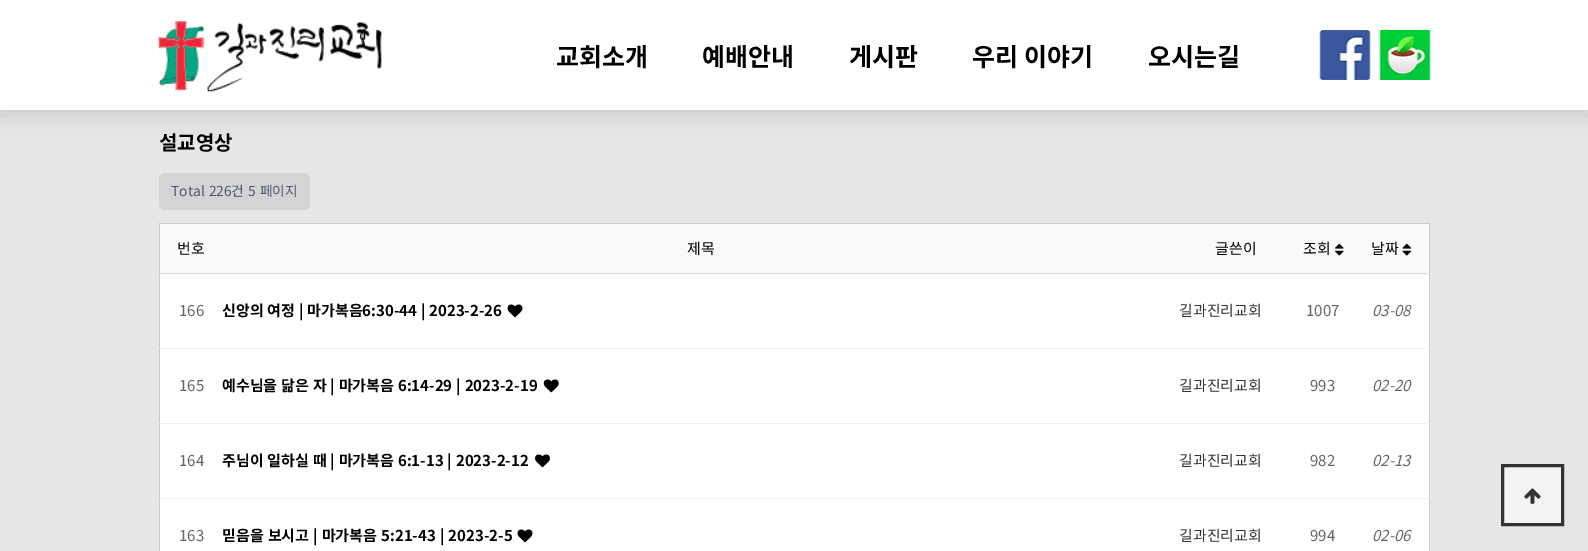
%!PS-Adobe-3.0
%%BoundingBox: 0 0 1588 551
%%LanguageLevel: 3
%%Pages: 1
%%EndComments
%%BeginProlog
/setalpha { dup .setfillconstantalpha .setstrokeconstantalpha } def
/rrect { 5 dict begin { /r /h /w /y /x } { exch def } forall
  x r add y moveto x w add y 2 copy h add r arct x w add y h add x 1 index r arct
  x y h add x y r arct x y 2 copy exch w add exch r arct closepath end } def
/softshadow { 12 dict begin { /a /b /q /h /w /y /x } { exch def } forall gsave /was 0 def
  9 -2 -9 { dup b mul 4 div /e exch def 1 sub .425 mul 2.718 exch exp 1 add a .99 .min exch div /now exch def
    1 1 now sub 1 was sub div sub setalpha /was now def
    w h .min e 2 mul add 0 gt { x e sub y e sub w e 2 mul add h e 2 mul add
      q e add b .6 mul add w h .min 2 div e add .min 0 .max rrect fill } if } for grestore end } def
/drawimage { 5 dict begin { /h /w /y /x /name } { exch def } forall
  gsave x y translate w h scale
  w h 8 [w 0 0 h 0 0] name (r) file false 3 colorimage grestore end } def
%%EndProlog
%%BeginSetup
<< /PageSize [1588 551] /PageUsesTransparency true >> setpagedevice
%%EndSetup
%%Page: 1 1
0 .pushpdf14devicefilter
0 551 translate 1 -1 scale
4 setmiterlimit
0.906 setgray
0 0 1588 551 rectfill
0 setgray
-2 -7 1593 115 0 15 0.2 softshadow
1 setgray
0 0 1588 110 rectfill
(images/1.raw) 158 21 224 71 drawimage
(images/2.raw) 1319 30 52 50 drawimage
(images/3.raw) 1379 30 52 50 drawimage
0.831 setgray
159 173 151 37 6 rrect fill
0.8 setgray
159 223 1271 1 rectfill
1429 223 1 328 rectfill
159 223 1 328 rectfill
0.98 setgray
160 224 1269 49 rectfill
(images/4.raw) 1335 243 9 13 drawimage
0.867 setgray
159 273 1271 1 rectfill
(images/5.raw) 1402 243 9 13 drawimage
1 setgray
160 274 1269 74 rectfill
(images/6.raw) 507 304 16 14 drawimage
160 349 1269 74 rectfill
(images/7.raw) 543 379 16 14 drawimage
0.925 0.941 0.945 setrgbcolor
159 348 1271 1 rectfill
1 setgray
160 424 1269 74 rectfill
(images/8.raw) 535 454 15 14 drawimage
0.925 0.941 0.945 setrgbcolor
159 423 1271 1 rectfill
1 setgray
160 499 1269 52 rectfill
(images/6.raw) 517 529 16 14 drawimage
0.925 0.941 0.945 setrgbcolor
159 498 1271 1 rectfill
0.953 setgray
newpath 1502.5 465.5 moveto 1562.5 465.5 lineto 1562.5 524.5 lineto 1502.5 524.5 lineto closepath gsave fill grestore
0.2 setgray
3 setlinewidth
stroke
(images/9.raw) 1524 488 17 16 drawimage
/NotoSansKR-Bold [25 0 0 -25 0 0] selectfont
0 setgray
556 66 moveto (교회소개) show
702 66 moveto (예배안내) show
849 66 moveto (게시판) show
972 66 moveto (우리 이야기) show
1148 66 moveto (오시는길) show
/NotoSansKR-Bold [20 0 0 -20 0 0] selectfont
159 150 moveto (설교영상) show
/NotoSansKR-Regular [13.75 0 0 -13.75 0 0] selectfont
0.306 0.329 0.435 setrgbcolor
171 196 moveto 1 0 32 (Total 226건) widthshow
248 196 moveto 1 0 32 (5 페이지) widthshow
/NotoSansKR-Regular [15 0 0 -15 0 0] selectfont
0 setgray
177 254 moveto (번호) show
687 254 moveto (제목) show
1215 254 moveto (글쓴이) show
1303 254 moveto (조회) show
1371 254 moveto (날짜) show
0.4 setgray
179 316 moveto (166) show
/NotoSansKR-Bold [15 0 0 -15 0 0] selectfont
0 setgray
222 316 moveto 0.5 0 32 (신앙의 여정 | 마가복음6:30-44 | 2023-2-26) widthshow
/NotoSansKR-Regular [15 0 0 -15 0 0] selectfont
0.2 setgray
1179 316 moveto (길과진리교회) show
0.4 setgray
1306 316 moveto (1007) show
/NotoSansKR-Italic [15 0 0 -15 0 0] selectfont
1372 316 moveto (03-08) show
/NotoSansKR-Regular [15 0 0 -15 0 0] selectfont
179 391 moveto (165) show
/NotoSansKR-Bold [15 0 0 -15 0 0] selectfont
0 setgray
222 391 moveto 0.5 0 32 (예수님을 닮은 자 | 마가복음 6:14-29 | 2023-2-19) widthshow
/NotoSansKR-Regular [15 0 0 -15 0 0] selectfont
0.2 setgray
1179 391 moveto (길과진리교회) show
0.4 setgray
1310 391 moveto (993) show
/NotoSansKR-Italic [15 0 0 -15 0 0] selectfont
1372 391 moveto (02-20) show
/NotoSansKR-Regular [15 0 0 -15 0 0] selectfont
179 466 moveto (164) show
/NotoSansKR-Bold [15 0 0 -15 0 0] selectfont
0 setgray
222 466 moveto 0.5 0 32 (주님이 일하실 때 | 마가복음 6:1-13 | 2023-2-12) widthshow
/NotoSansKR-Regular [15 0 0 -15 0 0] selectfont
0.2 setgray
1179 466 moveto (길과진리교회) show
0.4 setgray
1310 466 moveto (982) show
/NotoSansKR-Italic [15 0 0 -15 0 0] selectfont
1372 466 moveto (02-13) show
/NotoSansKR-Regular [15 0 0 -15 0 0] selectfont
179 541 moveto (163) show
/NotoSansKR-Bold [15 0 0 -15 0 0] selectfont
0 setgray
222 541 moveto 0.75 0 32 (믿음을 보시고 | 마가복음 5:21-43 | 2023-2-5) widthshow
/NotoSansKR-Regular [15 0 0 -15 0 0] selectfont
0.2 setgray
1179 541 moveto (길과진리교회) show
0.4 setgray
1310 541 moveto (994) show
/NotoSansKR-Italic [15 0 0 -15 0 0] selectfont
1372 541 moveto (02-06) show
.poppdf14devicefilter showpage
%%EOF
